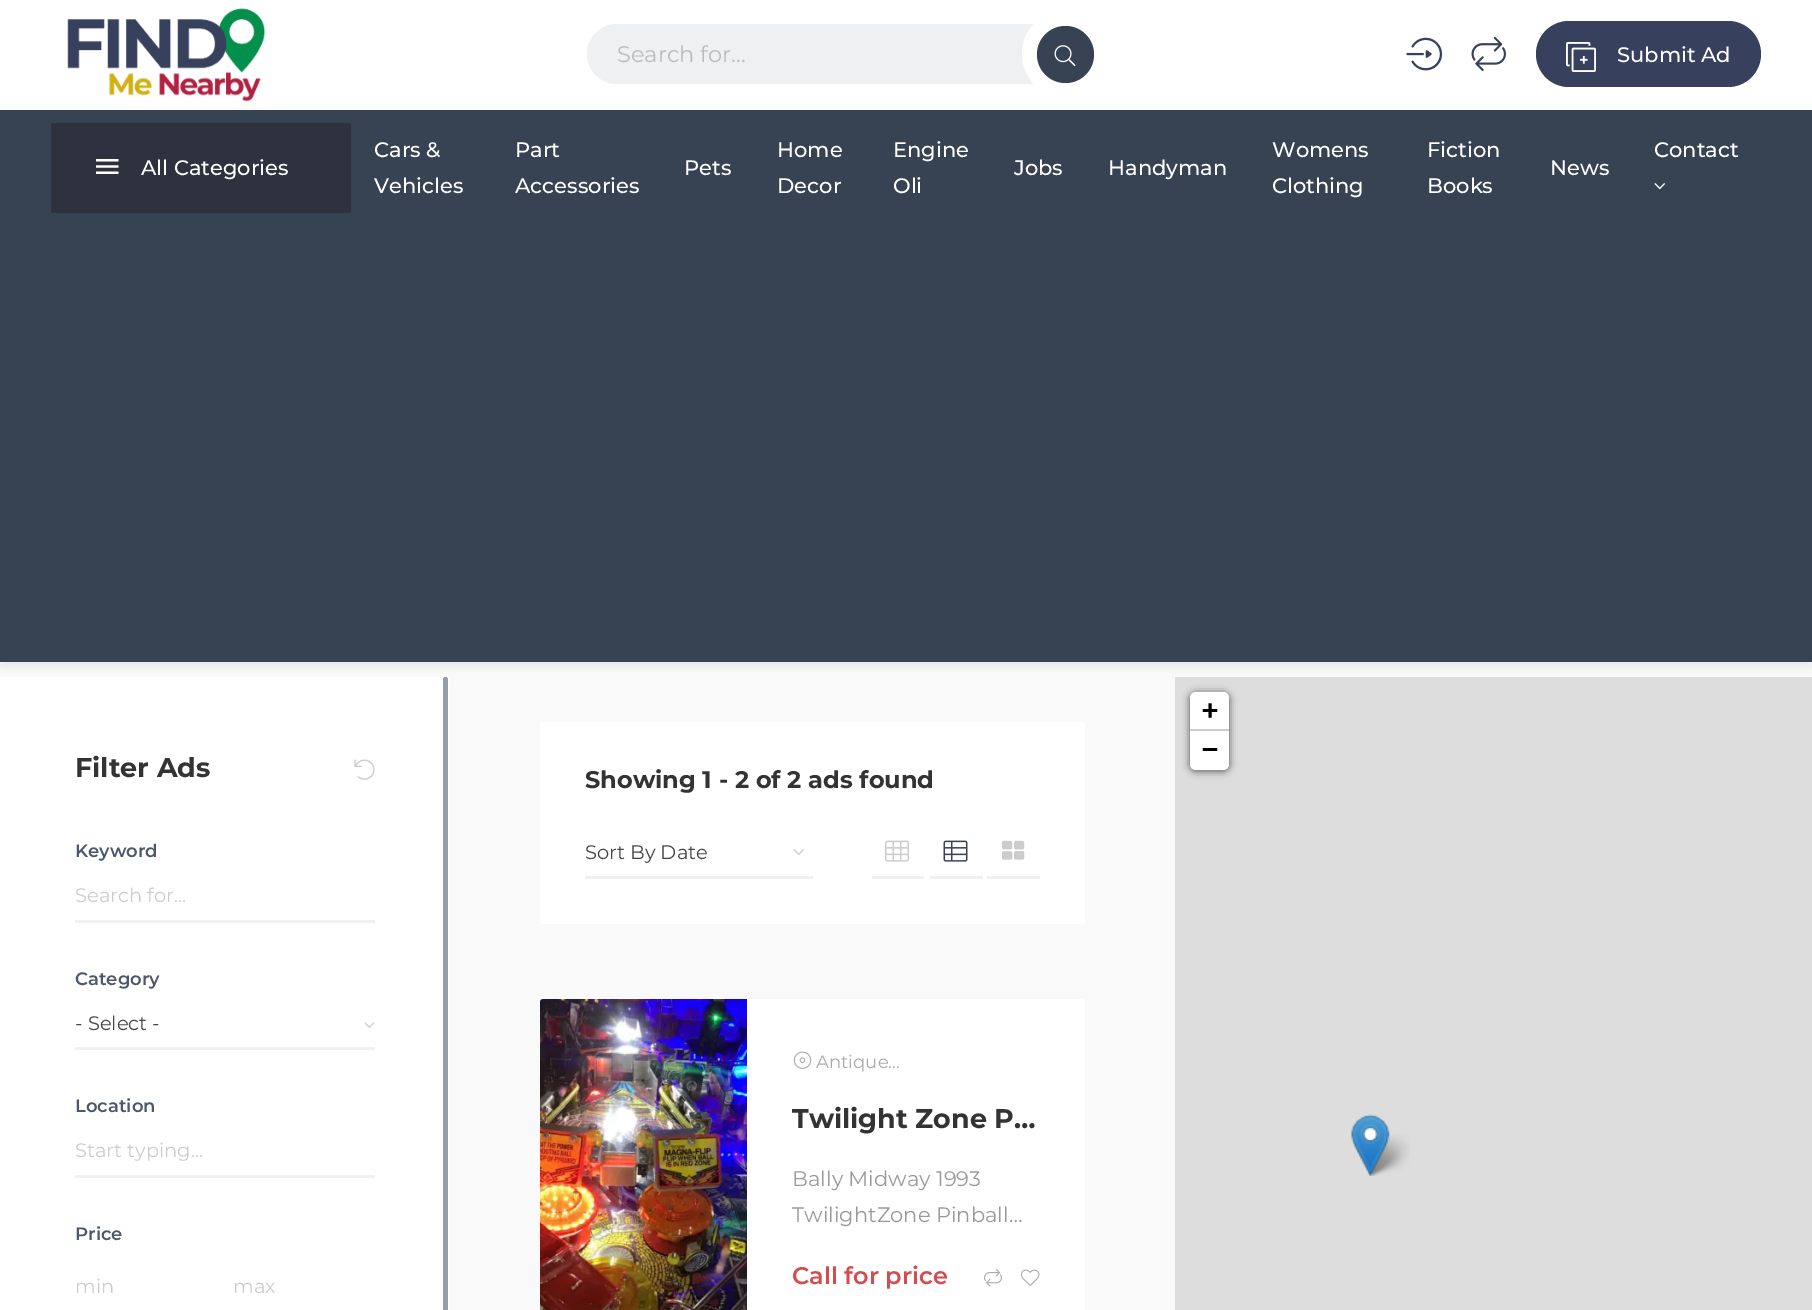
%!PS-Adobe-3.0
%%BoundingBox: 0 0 1812 1310
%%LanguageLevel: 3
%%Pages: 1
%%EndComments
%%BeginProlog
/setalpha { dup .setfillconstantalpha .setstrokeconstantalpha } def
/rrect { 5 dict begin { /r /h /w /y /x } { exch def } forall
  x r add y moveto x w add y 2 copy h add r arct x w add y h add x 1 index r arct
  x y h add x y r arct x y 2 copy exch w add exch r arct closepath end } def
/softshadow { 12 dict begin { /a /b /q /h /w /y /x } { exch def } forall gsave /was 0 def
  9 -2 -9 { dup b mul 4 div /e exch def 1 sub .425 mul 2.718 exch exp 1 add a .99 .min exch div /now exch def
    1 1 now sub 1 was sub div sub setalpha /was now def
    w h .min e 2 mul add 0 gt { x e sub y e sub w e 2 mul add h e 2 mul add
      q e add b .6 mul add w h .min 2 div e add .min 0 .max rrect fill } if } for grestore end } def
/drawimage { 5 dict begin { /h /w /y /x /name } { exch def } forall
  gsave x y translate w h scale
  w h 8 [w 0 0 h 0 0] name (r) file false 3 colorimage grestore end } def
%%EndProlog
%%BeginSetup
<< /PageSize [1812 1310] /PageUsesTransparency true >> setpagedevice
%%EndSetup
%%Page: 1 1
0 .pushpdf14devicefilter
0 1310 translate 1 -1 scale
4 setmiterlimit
0.976 setgray
0 0 1812 1310 rectfill
1 setgray
0 0 1812 110 rectfill
(images/1.raw) 67 8 199 94 drawimage
0.973 setgray
587 24 507 60 30 rrect fill
0.937 0.941 0.949 setrgbcolor
newpath 617 24 moveto 1034 24 lineto 1035.5 24 1037 25.5 1037 27 curveto 1037 81 lineto 1037 82.5 1035.5 84 1034 84 curveto 617 84 lineto 600.5 84 587 70.5 587 54 curveto 587 37.5 600.5 24 617 24 curveto closepath fill
1 setgray
newpath 1066 26 moveto 1050 26 1037 39 1037 54 curveto 1037 70 1050 83 1066 83 curveto 1075 83 1083 79 1088 72 curveto 1083 79 1074 84 1064 84 curveto 1034 84 lineto 1018 67 1018 40 1034 24 curveto 1064 24 lineto 1081 24 1094 37 1094 54 curveto 1094 39 1081 26 1066 26 curveto closepath fill
gsave
587 24 507 60 30 rrect clip newpath
0.216 0.259 0.322 setrgbcolor
newpath 1065.5 54.5 28.5 0 360 arc closepath fill
grestore
(images/2.raw) 1054 45 22 22 drawimage
(images/3.raw) 1406 37 37 34 drawimage
(images/4.raw) 1471 36 35 35 drawimage
0.216 0.251 0.365 setrgbcolor
1536 21 225 66 33 rrect fill
(images/5.raw) 1566 42 30 30 drawimage
0.867 setgray
1175 677 637 633 rectfill
1 setgray
newpath 3 677 moveto 447 677 lineto 448.5 677 450 678.5 450 680 curveto 450 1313 lineto 0 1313 lineto 0 680 lineto 0 678.5 1.5 677 3 677 curveto closepath fill
0.843 0.851 0.875 setrgbcolor
443 677 5 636 2.5 rrect fill
0.4 setalpha
0.216 0.251 0.365 setrgbcolor
443 677 5 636 2.5 rrect fill
1 setalpha
0.09 setgray
0 116 1812 552 0 3 0.06 softshadow
0.216 0.259 0.322 setrgbcolor
0 110 1812 552 rectfill
0.176 0.196 0.243 setrgbcolor
51 123 300 90 rectfill
(images/6.raw) 96 159 23 15 drawimage
(images/7.raw) 1654 183 11 7 drawimage
0 setgray
1190 693 39 78 6 4 0.65 softshadow
1 setgray
newpath 1196 692 moveto 1223 692 lineto 1226.5 692 1229 694.5 1229 698 curveto 1229 731 lineto 1190 731 lineto 1190 698 lineto 1190 694.5 1192.5 692 1196 692 curveto closepath fill
0.8 setgray
1190 729 39 2 rectfill
1 setgray
newpath 1190 731 moveto 1229 731 lineto 1229 764 lineto 1229 767.5 1226.5 770 1223 770 curveto 1196 770 lineto 1192.5 770 1190 767.5 1190 764 curveto closepath fill
(images/9.raw) 1365 1134 45 42 drawimage
(images/8.raw) 1351 1114 39 62 drawimage
(images/10.raw) 354 759 21 21 drawimage
0.945 setgray
75 920 300 3 rectfill
75 1047 300 3 rectfill
(images/11.raw) 364 1022 11 6 drawimage
75 1175 300 3 rectfill
1 setgray
540 722 545 202 3 rrect fill
0.945 setgray
585 876 228 3 rectfill
(images/12.raw) 793 849 11 7 drawimage
872 876 52 3 rectfill
(images/13.raw) 885 840 24 22 drawimage
930 876 53 3 rectfill
(images/14.raw) 943 840 25 22 drawimage
987 876 53 3 rectfill
(images/15.raw) 1002 840 23 20 drawimage
1 setgray
540 999 545 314 3 rrect fill
(images/16.raw) 540 999 207 311 drawimage
(images/17.raw) 793 1051 19 18 drawimage
(images/18.raw) 984 1268 18 19 drawimage
(images/19.raw) 1020 1269 20 17 drawimage
/Montserrat-Regular [22.5 0 0 -22.5 0 0] selectfont
0.733 setgray
617 62 moveto (Search for...) show
/Montserrat-Medium [21 0 0 -21 0 0] selectfont
1 setgray
1617 62 moveto (Submit Ad) show
141 175 moveto (All Categories) show
374 157 moveto (Cars &) show
374 193 moveto (Vehicles) show
515 157 moveto (Part) show
515 193 moveto (Accessories) show
777 157 moveto (Home) show
777 193 moveto (Decor) show
893 157 moveto (Engine) show
893 193 moveto (Oli) show
1272 157 moveto (Womens) show
1272 193 moveto (Clothing) show
1427 157 moveto (Fiction) show
1427 193 moveto (Books) show
1654 157 moveto (Contact) show
684 175 moveto (Pets) show
1014 175 moveto (Jobs) show
1108 175 moveto (Handyman) show
1550 175 moveto (News) show
/DejaVuSansMono-Bold [27 0 0 -27 0 0] selectfont
0 setgray
1202 719 moveto (+) show
1202 758 moveto (−) show
/Montserrat-Bold [27 0 0 -27 0 0] selectfont
0.2 setgray
75 777 moveto (Filter Ads) show
/Montserrat-SemiBold [18 0 0 -18 0 0] selectfont
0.294 0.345 0.42 setrgbcolor
75 857 moveto (Keyword) show
/Montserrat-Regular [19.5 0 0 -19.5 0 0] selectfont
0.8 setgray
75 902 moveto (Search for...) show
/Montserrat-SemiBold [18 0 0 -18 0 0] selectfont
0.294 0.345 0.42 setrgbcolor
75 985 moveto (Category) show
/Montserrat-Regular [19.5 0 0 -19.5 0 0] selectfont
0.267 setgray
75 1030 moveto (- Select -) show
/Montserrat-SemiBold [18 0 0 -18 0 0] selectfont
0.294 0.345 0.42 setrgbcolor
75 1112 moveto (Location) show
/Montserrat-Regular [19.5 0 0 -19.5 0 0] selectfont
0.8 setgray
75 1157 moveto (Start typing...) show
/Montserrat-SemiBold [18 0 0 -18 0 0] selectfont
0.294 0.345 0.42 setrgbcolor
75 1240 moveto (Price) show
/Montserrat-Regular [19.5 0 0 -19.5 0 0] selectfont
0.8 setgray
75 1293 moveto (min) show
233 1293 moveto (max) show
/Montserrat-Bold [24 0 0 -24 0 0] selectfont
0.2 setgray
585 788 moveto (Showing 1 - 2 of 2 ads found) show
/Montserrat-Regular [19.5 0 0 -19.5 0 0] selectfont
0.267 setgray
585 859 moveto (Sort By Date) show
/Montserrat-Regular [18 0 0 -18 0 0] selectfont
0.667 setgray
816 1068 moveto (Antique…) show
/Montserrat-Bold [27 0 0 -27 0 0] selectfont
0.2 setgray
792 1128 moveto (Twilight Zone P…) show
/Montserrat-Regular [21 0 0 -21 0 0] selectfont
0.6 setgray
792 1186 moveto (Bally Midway 1993) show
792 1222 moveto (TwilightZone Pinball…) show
/Montserrat-SemiBold [24 0 0 -24 0 0] selectfont
0.835 0.294 0.31 setrgbcolor
792 1284 moveto (Call for price) show
.poppdf14devicefilter showpage
%%EOF
